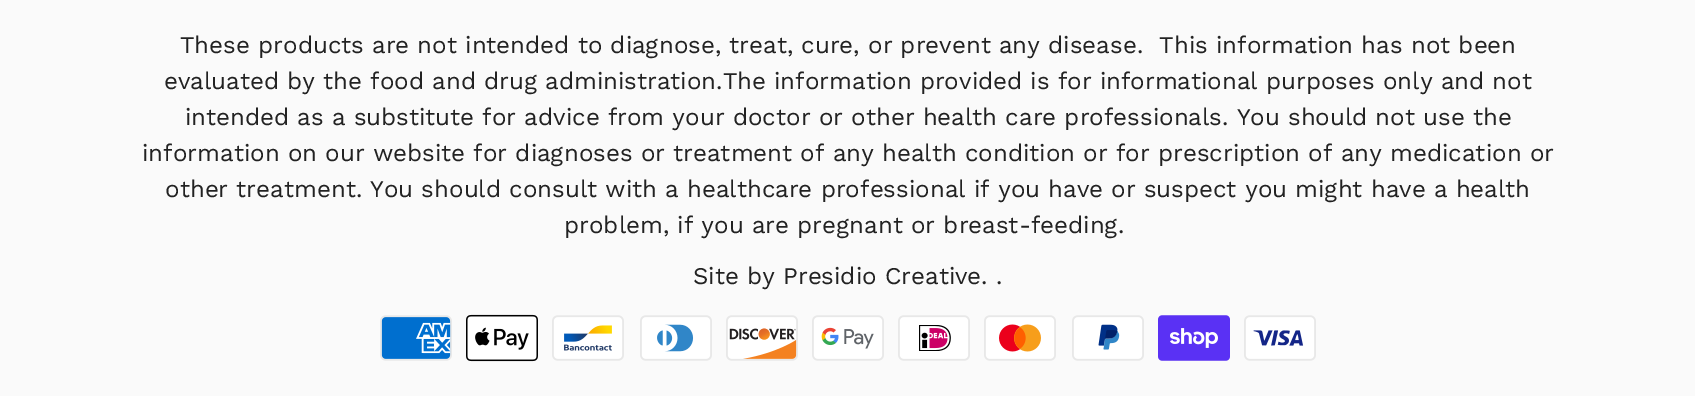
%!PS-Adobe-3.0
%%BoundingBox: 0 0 1695 396
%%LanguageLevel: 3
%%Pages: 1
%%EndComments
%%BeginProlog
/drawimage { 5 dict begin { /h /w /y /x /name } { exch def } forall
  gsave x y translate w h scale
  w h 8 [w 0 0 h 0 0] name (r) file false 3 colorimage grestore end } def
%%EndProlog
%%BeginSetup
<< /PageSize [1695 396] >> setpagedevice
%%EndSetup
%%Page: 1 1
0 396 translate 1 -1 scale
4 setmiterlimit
0.98 setgray
0 0 1695 396 rectfill
(images/1.raw) 380 315 72 46 drawimage
(images/2.raw) 466 314 72 48 drawimage
(images/3.raw) 552 315 72 46 drawimage
(images/4.raw) 640 315 72 46 drawimage
(images/5.raw) 726 315 72 46 drawimage
(images/6.raw) 812 315 72 46 drawimage
(images/7.raw) 898 315 72 46 drawimage
(images/8.raw) 984 315 72 46 drawimage
(images/9.raw) 1072 315 72 46 drawimage
(images/10.raw) 1158 315 72 46 drawimage
(images/11.raw) 1244 315 72 46 drawimage
/WorkSans-Regular [24 0 0 -24 0 0] selectfont
0.133 setgray
180 53 moveto (These products are not intended to diagnose, treat, cure, or prevent any disease.  This information has not been) show
164 89 moveto (evaluated by the food and drug administration.The information provided is for informational purposes only and not) show
185 125 moveto (intended as a substitute for advice from your doctor or other health care professionals. You should not use the) show
142 161 moveto (information on our website for diagnoses or treatment of any health condition or for prescription of any medication or) show
165 197 moveto (other treatment. You should consult with a healthcare professional if you have or suspect you might have a health) show
564 233 moveto (problem, if you are pregnant or breast-feeding.) show
693 284 moveto (Site by Presidio Creative. .) show
showpage
%%EOF
